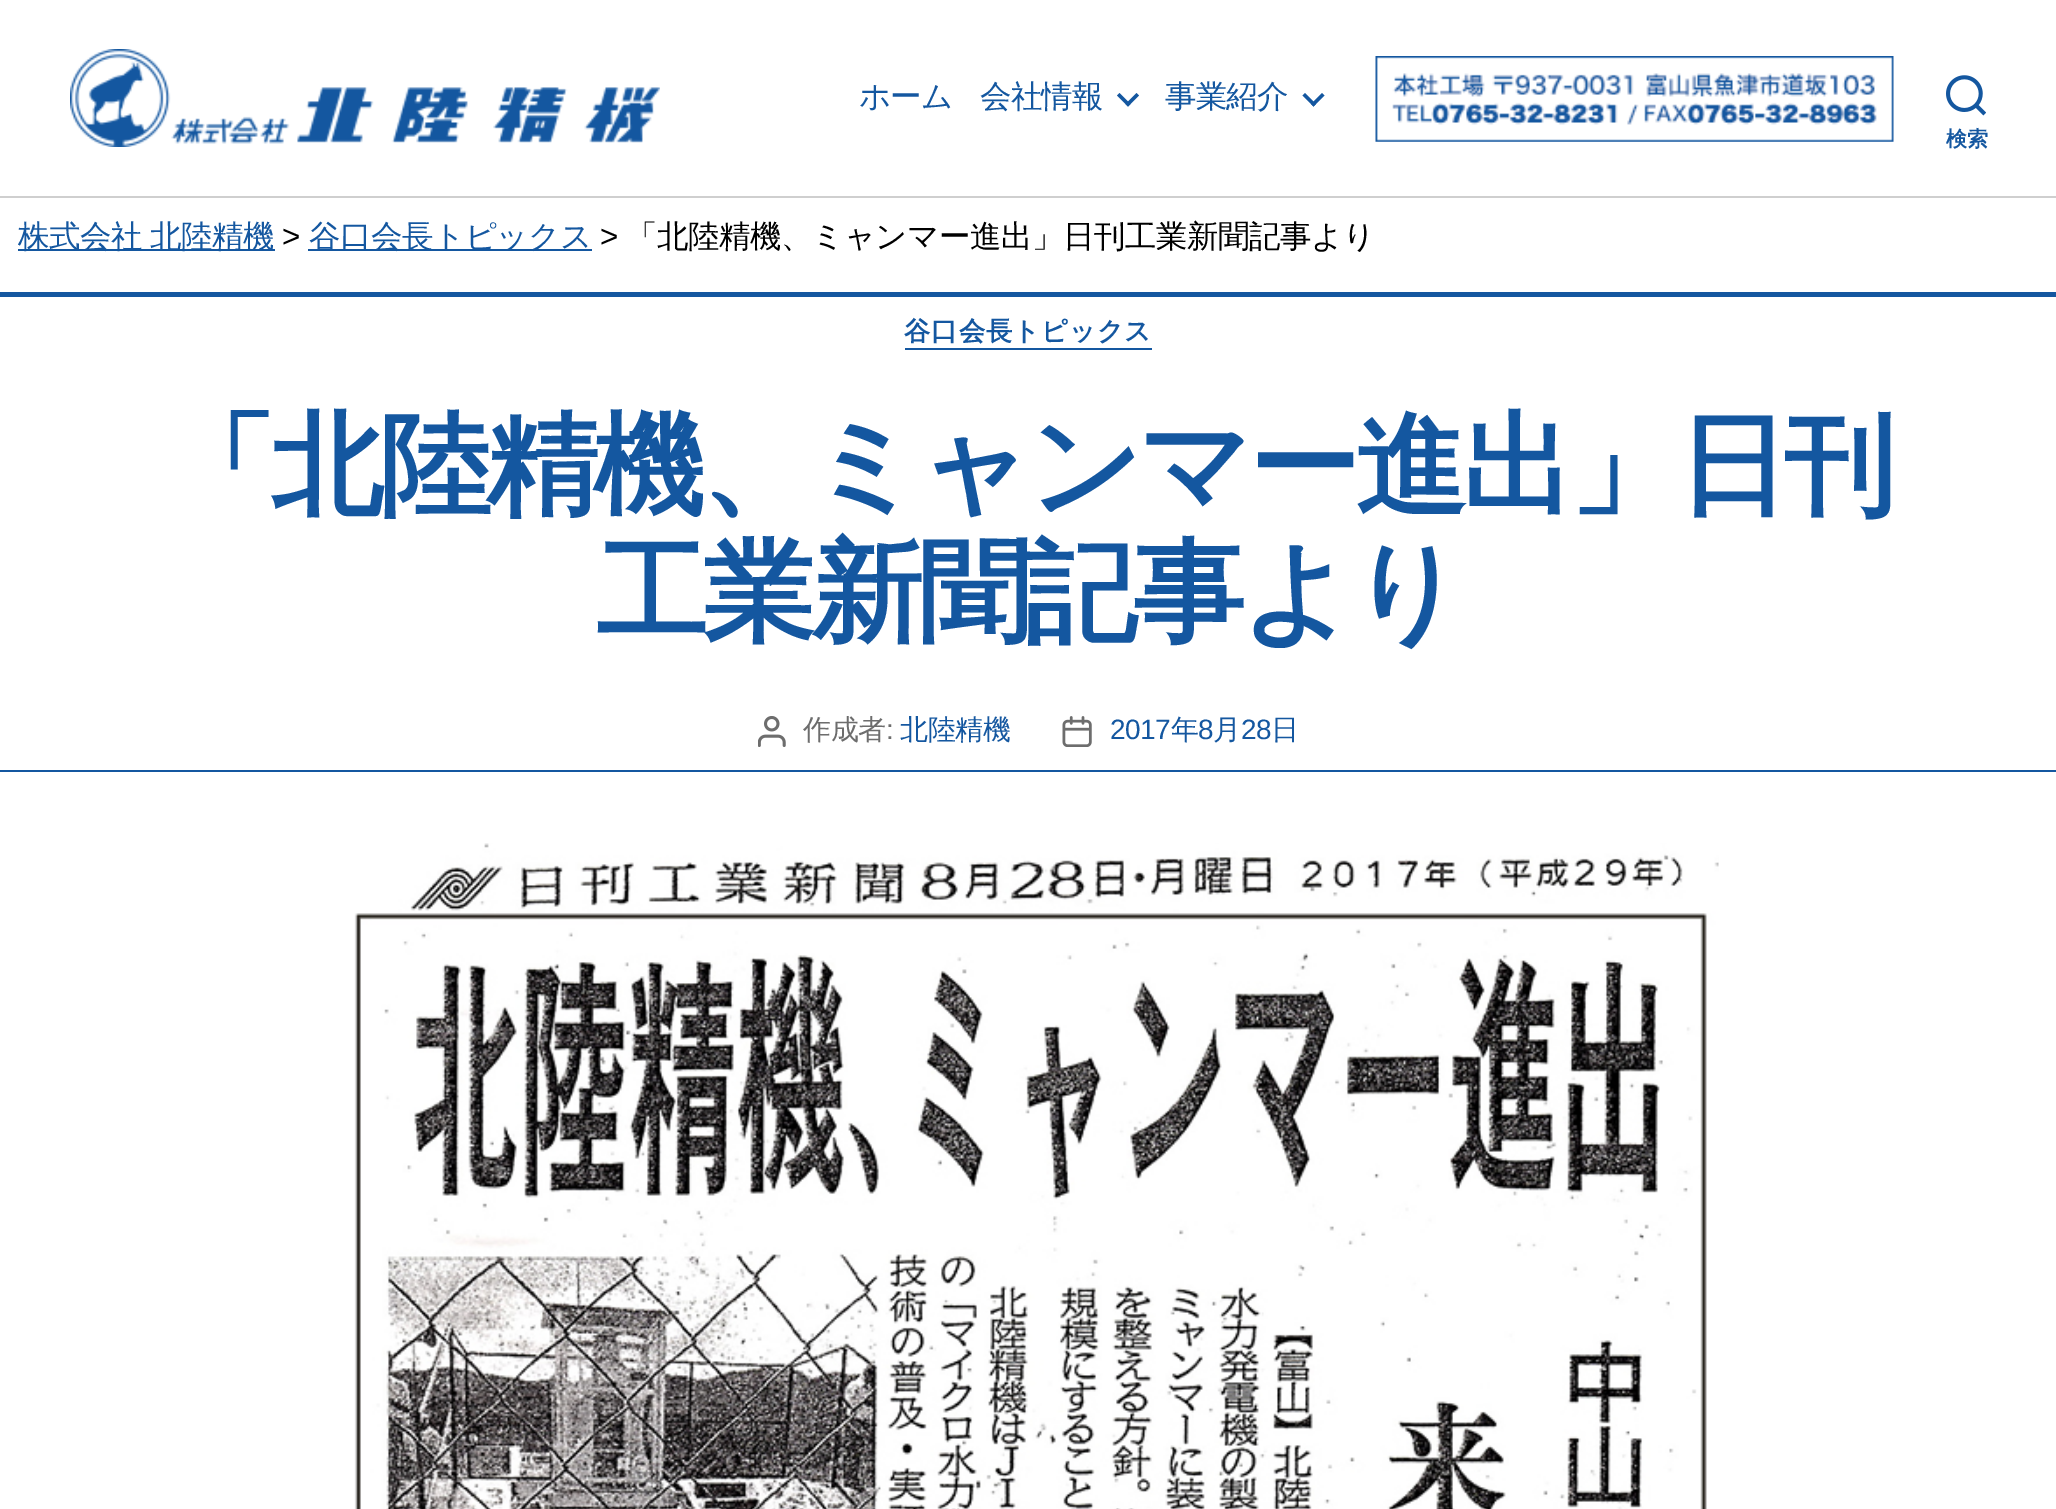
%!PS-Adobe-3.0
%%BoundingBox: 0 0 2056 1509
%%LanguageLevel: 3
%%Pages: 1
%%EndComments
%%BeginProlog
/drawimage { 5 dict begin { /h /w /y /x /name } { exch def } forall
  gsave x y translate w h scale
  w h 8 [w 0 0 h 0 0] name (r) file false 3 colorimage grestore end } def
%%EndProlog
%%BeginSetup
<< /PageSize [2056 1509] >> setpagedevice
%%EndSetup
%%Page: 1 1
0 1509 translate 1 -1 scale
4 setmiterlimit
1 setgray
0 0 2056 1509 rectfill
(images/1.raw) 70 49 590 98 drawimage
0.078 0.341 0.627 setrgbcolor
newpath 1117 95.5 moveto 1119.5 93 lineto 1130.5 104 lineto 1128 106.5 lineto closepath fill
newpath 1125.5 104 moveto 1136.5 93 lineto 1139 95.5 lineto 1128 106.5 lineto closepath fill
newpath 1302.5 95.5 moveto 1305 93 lineto 1316 104 lineto 1313.5 106.5 lineto closepath fill
newpath 1311 104 moveto 1322 93 lineto 1324.5 95.5 lineto 1313.5 106.5 lineto closepath fill
(images/2.raw) 1375 56 519 86 drawimage
(images/3.raw) 1946 75 40 41 drawimage
0.812 setgray
0 196 2056 2 rectfill
0.078 0.341 0.627 setrgbcolor
18 249 257 2 rectfill
308 249 284 2 rectfill
0 292 2056 5 rectfill
0 770 2056 2 rectfill
905 348 247 2 rectfill
(images/4.raw) 758 716 28 31 drawimage
(images/5.raw) 1062 716 30 31 drawimage
(images/6.raw) 354 843 1365 666 drawimage
/WenQuanYiZenHei-Medium [31.5 0 0 -31.5 0 0] selectfont
859 107 moveto -1 0 (ホーム) ashow
980 107 moveto -1 0 (会社情報) ashow
1165 107 moveto -1 0 (事業紹介) ashow
/WenQuanYiZenHei-Bold [21 0 0 -21 0 0] selectfont
1946 146 moveto -0.5 0 (検索) ashow
/WenQuanYiZenHei-Medium [31.5 0 0 -31.5 0 0] selectfont
18 247 moveto -1 0 32 -0.5 0 (株式会社 北陸精機) awidthshow
/LiberationSans-Regular [31.5 0 0 -31.5 0 0] selectfont
0 setgray
282 247 moveto -0.5 0 (>) ashow
/WenQuanYiZenHei-Medium [31.5 0 0 -31.5 0 0] selectfont
0.078 0.341 0.627 setrgbcolor
309 247 moveto -0.5 0 (谷口会長トピックス) ashow
/LiberationSans-Regular [31.5 0 0 -31.5 0 0] selectfont
0 setgray
600 247 moveto -0.5 0 (>) ashow
/WenQuanYiZenHei-Medium [31.5 0 0 -31.5 0 0] selectfont
626 247 moveto -0.5 0 (「北陸精機、ミャンマー進出」日刊工業新聞記事より) ashow
/WenQuanYiZenHei-Bold [26.25 0 0 -26.25 0 0] selectfont
0.078 0.341 0.627 setrgbcolor
904 340 moveto 1 0 (谷口会長トピックス) ashow
/WenQuanYiZenHei-Bold [112 0 0 -112 0 0] selectfont
164 504 moveto -4.7 0 (「北陸精機、ミャンマー進出」日刊) ashow
596 631 moveto -4.7 0 (工業新聞記事より) ashow
/WenQuanYiZenHei-Medium [28 0 0 -28 0 0] selectfont
0.427 setgray
803 739 moveto -0.5 0 (作成者) ashow
/LiberationSans-Regular [28 0 0 -28 0 0] selectfont
886 739 moveto -0.5 0 (:) ashow
/WenQuanYiZenHei-Medium [28 0 0 -28 0 0] selectfont
0.078 0.341 0.627 setrgbcolor
900 739 moveto -0.5 0 (北陸精機) ashow
/LiberationSans-Regular [28 0 0 -28 0 0] selectfont
1110 739 moveto -0.5 0 (2017) ashow
/WenQuanYiZenHei-Medium [28 0 0 -28 0 0] selectfont
1171 739 moveto -0.5 0 (年) ashow
/LiberationSans-Regular [28 0 0 -28 0 0] selectfont
1198 739 moveto -0.5 0 (8) ashow
/WenQuanYiZenHei-Medium [28 0 0 -28 0 0] selectfont
1213 739 moveto -0.5 0 (月) ashow
/LiberationSans-Regular [28 0 0 -28 0 0] selectfont
1241 739 moveto -0.5 0 (28) ashow
/WenQuanYiZenHei-Medium [28 0 0 -28 0 0] selectfont
1271 739 moveto -0.5 0 (日) ashow
showpage
%%EOF
